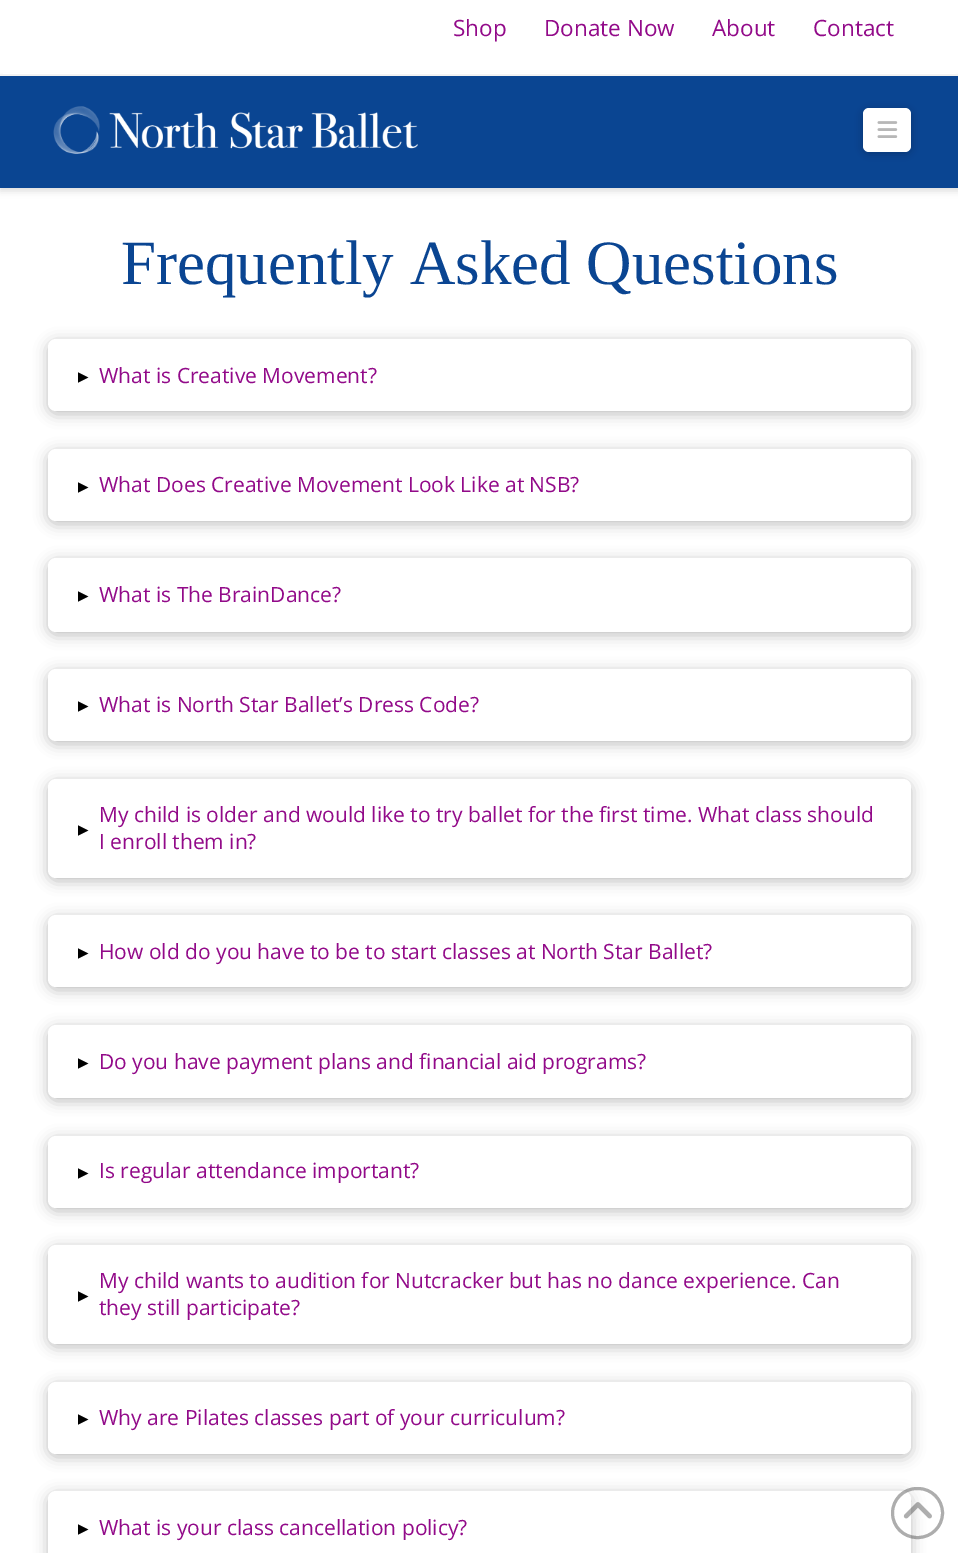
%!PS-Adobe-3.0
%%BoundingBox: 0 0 958 1553
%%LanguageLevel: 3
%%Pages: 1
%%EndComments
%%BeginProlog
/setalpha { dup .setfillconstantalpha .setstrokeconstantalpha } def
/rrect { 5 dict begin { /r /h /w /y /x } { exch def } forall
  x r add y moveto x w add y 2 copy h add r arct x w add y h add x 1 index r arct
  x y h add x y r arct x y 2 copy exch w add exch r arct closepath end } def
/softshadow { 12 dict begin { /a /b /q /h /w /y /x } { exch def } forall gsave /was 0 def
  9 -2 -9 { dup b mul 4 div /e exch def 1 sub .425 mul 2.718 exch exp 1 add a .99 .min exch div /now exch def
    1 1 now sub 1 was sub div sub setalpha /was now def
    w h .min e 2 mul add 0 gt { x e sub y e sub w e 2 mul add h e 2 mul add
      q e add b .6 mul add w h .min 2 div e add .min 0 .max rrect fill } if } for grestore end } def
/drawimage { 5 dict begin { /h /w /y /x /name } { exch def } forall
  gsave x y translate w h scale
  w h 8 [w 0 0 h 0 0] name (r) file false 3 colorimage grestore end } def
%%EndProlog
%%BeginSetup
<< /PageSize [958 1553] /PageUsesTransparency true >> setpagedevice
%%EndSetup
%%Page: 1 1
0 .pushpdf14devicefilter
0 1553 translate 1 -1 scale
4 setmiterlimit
1 setgray
0 0 958 1553 rectfill
0 setgray
0 78 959 113 0 3.5 0.13 softshadow
1 setgray
3 73 953 1 rectfill
0.949 setgray
0 74 958 2 rectfill
0.039 0.271 0.573 setrgbcolor
0 76 958 112 rectfill
(images/1.raw) 53 106 365 48 drawimage
0 setgray
863 110 48 43 6 4 0.25 softshadow
1 setgray
863 108 48 44 6 rrect fill
(images/2.raw) 877 121 21 17 drawimage
0 setgray
48 342 863 72 8 7 0.25 softshadow
1 setgray
48 339 863 72 8 rrect fill
0 setgray
48 452 863 72 8 7 0.25 softshadow
1 setgray
48 449 863 72 8 rrect fill
0 setgray
48 561 863 74 8 7 0.25 softshadow
1 setgray
48 558 863 74 8 rrect fill
0 setgray
48 672 863 72 8 7 0.25 softshadow
1 setgray
48 669 863 72 8 rrect fill
0 setgray
48 782 863 99 8 7 0.25 softshadow
1 setgray
48 779 863 99 8 rrect fill
0 setgray
48 918 863 72 8 7 0.25 softshadow
1 setgray
48 915 863 72 8 rrect fill
0 setgray
48 1028 863 73 8 7 0.25 softshadow
1 setgray
48 1025 863 73 8 rrect fill
0 setgray
48 1139 863 72 8 7 0.25 softshadow
1 setgray
48 1136 863 72 8 rrect fill
0 setgray
48 1248 863 99 8 7 0.25 softshadow
1 setgray
48 1245 863 99 8 rrect fill
0 setgray
48 1385 863 72 8 7 0.25 softshadow
1 setgray
48 1382 863 72 8 rrect fill
0 setgray
48 1494 863 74 8 7 0.25 softshadow
1 setgray
48 1491 863 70 8 rrect fill
0.38 setalpha
0.153 setgray
3 setlinewidth
892.5 1488.5 50 49 24.5 rrect stroke
1 setalpha
(images/3.raw) 903 1502 29 17 drawimage
/OpenSans-Regular [22.5 0 0 -22.5 0 0] selectfont
0.573 0.039 0.537 setrgbcolor
453 36 moveto (Shop) show
544 36 moveto (Donate Now) show
712 36 moveto (About) show
813 36 moveto (Contact) show
/LiberationSerif-Regular [63 0 0 -63 0 0] selectfont
0.039 0.271 0.573 setrgbcolor
121 284 moveto (Frequently Asked Questions) show
/DejaVuSans-Regular [21 0 0 -21 0 0] selectfont
0 setgray
78 383 moveto (▸) show
/OpenSans-Regular [21 0 0 -21 0 0] selectfont
0.573 0.039 0.537 setrgbcolor
99 383 moveto (What is Creative Movement?) show
/DejaVuSans-Regular [21 0 0 -21 0 0] selectfont
0 setgray
78 493 moveto (▸) show
/OpenSans-Regular [21 0 0 -21 0 0] selectfont
0.573 0.039 0.537 setrgbcolor
99 492 moveto (What Does Creative Movement Look Like at NSB?) show
/DejaVuSans-Regular [21 0 0 -21 0 0] selectfont
0 setgray
78 602 moveto (▸) show
/OpenSans-Regular [21 0 0 -21 0 0] selectfont
0.573 0.039 0.537 setrgbcolor
99 602 moveto (What is The BrainDance?) show
/DejaVuSans-Regular [21 0 0 -21 0 0] selectfont
0 setgray
78 712 moveto (▸) show
/OpenSans-Regular [21 0 0 -21 0 0] selectfont
0.573 0.039 0.537 setrgbcolor
99 712 moveto (What is North Star Ballet’s Dress Code?) show
/DejaVuSans-Regular [21 0 0 -21 0 0] selectfont
0 setgray
78 836 moveto (▸) show
/OpenSans-Regular [21 0 0 -21 0 0] selectfont
0.573 0.039 0.537 setrgbcolor
99 822 moveto (My child is older and would like to try ballet for the first time. What class should) show
99 849 moveto (I enroll them in?) show
/DejaVuSans-Regular [21 0 0 -21 0 0] selectfont
0 setgray
78 959 moveto (▸) show
/OpenSans-Regular [21 0 0 -21 0 0] selectfont
0.573 0.039 0.537 setrgbcolor
99 959 moveto (How old do you have to be to start classes at North Star Ballet?) show
/DejaVuSans-Regular [21 0 0 -21 0 0] selectfont
0 setgray
78 1069 moveto (▸) show
/OpenSans-Regular [21 0 0 -21 0 0] selectfont
0.573 0.039 0.537 setrgbcolor
99 1069 moveto (Do you have payment plans and financial aid programs?) show
/DejaVuSans-Regular [21 0 0 -21 0 0] selectfont
0 setgray
78 1179 moveto (▸) show
/OpenSans-Regular [21 0 0 -21 0 0] selectfont
0.573 0.039 0.537 setrgbcolor
99 1178 moveto (Is regular attendance important?) show
/DejaVuSans-Regular [21 0 0 -21 0 0] selectfont
0 setgray
78 1302 moveto (▸) show
/OpenSans-Regular [21 0 0 -21 0 0] selectfont
0.573 0.039 0.537 setrgbcolor
99 1288 moveto (My child wants to audition for Nutcracker but has no dance experience. Can) show
99 1315 moveto (they still participate?) show
/DejaVuSans-Regular [21 0 0 -21 0 0] selectfont
0 setgray
78 1425 moveto (▸) show
/OpenSans-Regular [21 0 0 -21 0 0] selectfont
0.573 0.039 0.537 setrgbcolor
99 1425 moveto (Why are Pilates classes part of your curriculum?) show
/DejaVuSans-Regular [21 0 0 -21 0 0] selectfont
0 setgray
78 1535 moveto (▸) show
/OpenSans-Regular [21 0 0 -21 0 0] selectfont
0.573 0.039 0.537 setrgbcolor
99 1535 moveto (What is your class cancellation policy?) show
.poppdf14devicefilter showpage
%%EOF
